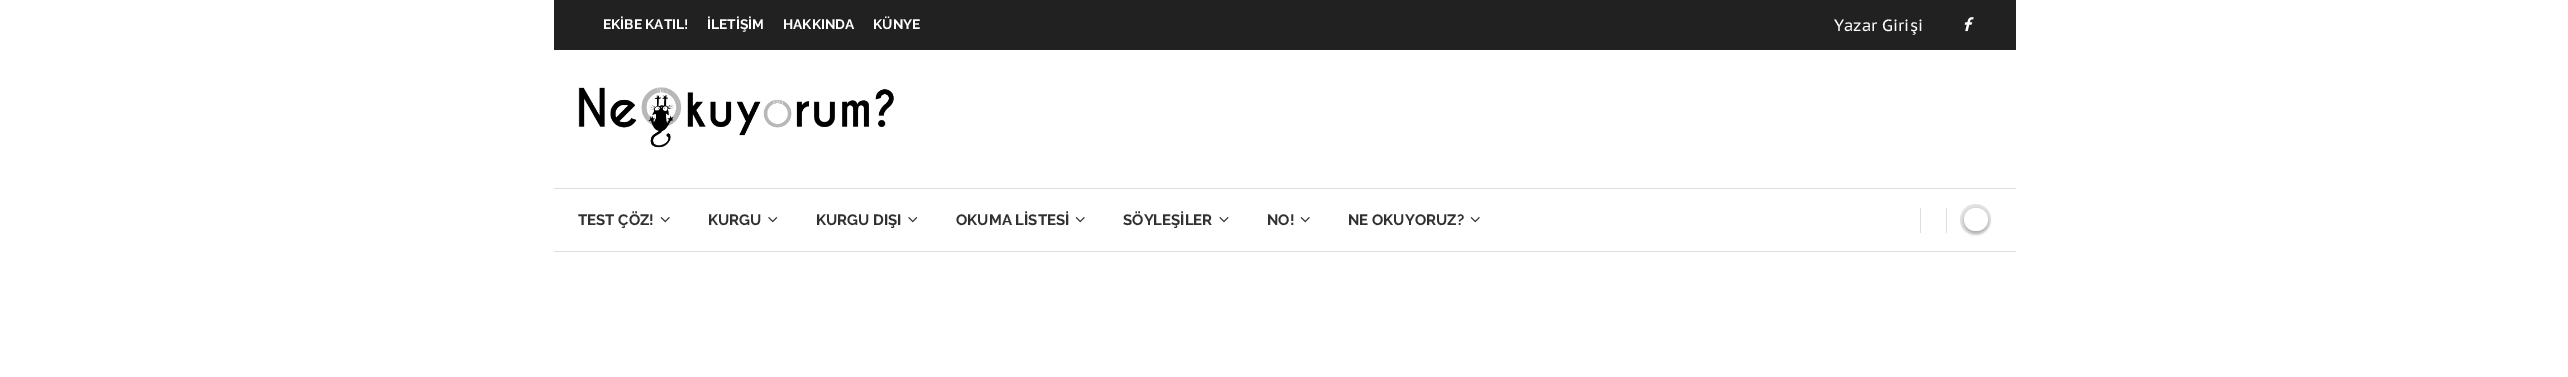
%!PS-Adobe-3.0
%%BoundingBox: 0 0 2568 377
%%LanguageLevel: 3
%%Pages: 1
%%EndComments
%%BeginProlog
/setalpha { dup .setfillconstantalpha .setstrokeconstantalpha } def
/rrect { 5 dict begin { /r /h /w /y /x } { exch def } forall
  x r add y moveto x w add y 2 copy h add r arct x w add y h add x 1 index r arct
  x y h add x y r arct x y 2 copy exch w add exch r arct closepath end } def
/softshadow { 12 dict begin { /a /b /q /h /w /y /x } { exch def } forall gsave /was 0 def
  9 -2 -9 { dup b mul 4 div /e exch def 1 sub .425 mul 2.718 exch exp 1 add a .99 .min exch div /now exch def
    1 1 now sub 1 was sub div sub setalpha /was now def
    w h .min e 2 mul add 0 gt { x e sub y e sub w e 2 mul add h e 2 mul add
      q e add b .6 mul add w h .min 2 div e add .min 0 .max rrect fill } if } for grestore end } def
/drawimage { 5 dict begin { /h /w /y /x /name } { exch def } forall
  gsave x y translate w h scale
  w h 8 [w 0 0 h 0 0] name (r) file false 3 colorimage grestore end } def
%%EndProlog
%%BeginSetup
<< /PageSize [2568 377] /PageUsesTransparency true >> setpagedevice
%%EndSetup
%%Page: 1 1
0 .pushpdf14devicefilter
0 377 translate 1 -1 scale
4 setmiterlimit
1 setgray
0 0 2568 377 rectfill
0.129 setgray
554 0 1462 50 rectfill
(images/1.raw) 1964 17 10 15 drawimage
(images/2.raw) 578 87 316 61 drawimage
0.871 setgray
554 188 1462 1 rectfill
554 251 1462 1 rectfill
(images/3.raw) 660 217 10 6 drawimage
(images/4.raw) 768 217 10 6 drawimage
(images/4.raw) 908 217 10 6 drawimage
(images/3.raw) 1075 217 10 6 drawimage
(images/5.raw) 1219 217 10 6 drawimage
(images/3.raw) 1300 217 10 6 drawimage
(images/3.raw) 1470 217 10 6 drawimage
1920 208 1 25 rectfill
1946 208 1 25 rectfill
0.902 setgray
newpath 1975.5 219.5 15.5 0 360 arc closepath fill
0 setgray
1964 209 24 24 12 2 0.3 softshadow
1 setgray
1964 208 24 23 11.5 rrect fill
/Raleway-Bold [13.75 0 0 -13.75 0 0] selectfont
603 29 moveto (EKİBE KATIL!) show
707 29 moveto (İLETİŞİM) show
783 29 moveto (HAKKINDA) show
873 29 moveto (KÜNYE) show
/PTSansCaption-Regular [16.25 0 0 -16.25 0 0] selectfont
1834 31 moveto (Yazar Girişi) show
/Raleway-Bold [15 0 0 -15 0 0] selectfont
0.192 setgray
578 225 moveto (TEST ÇÖZ!) show
708 225 moveto (KURGU) show
816 225 moveto (KURGU DIŞI) show
956 225 moveto (OKUMA LİSTESİ) show
1123 225 moveto (SÖYLEŞİLER) show
1267 225 moveto (NO!) show
1348 225 moveto (NE OKUYORUZ?) show
.poppdf14devicefilter showpage
%%EOF
